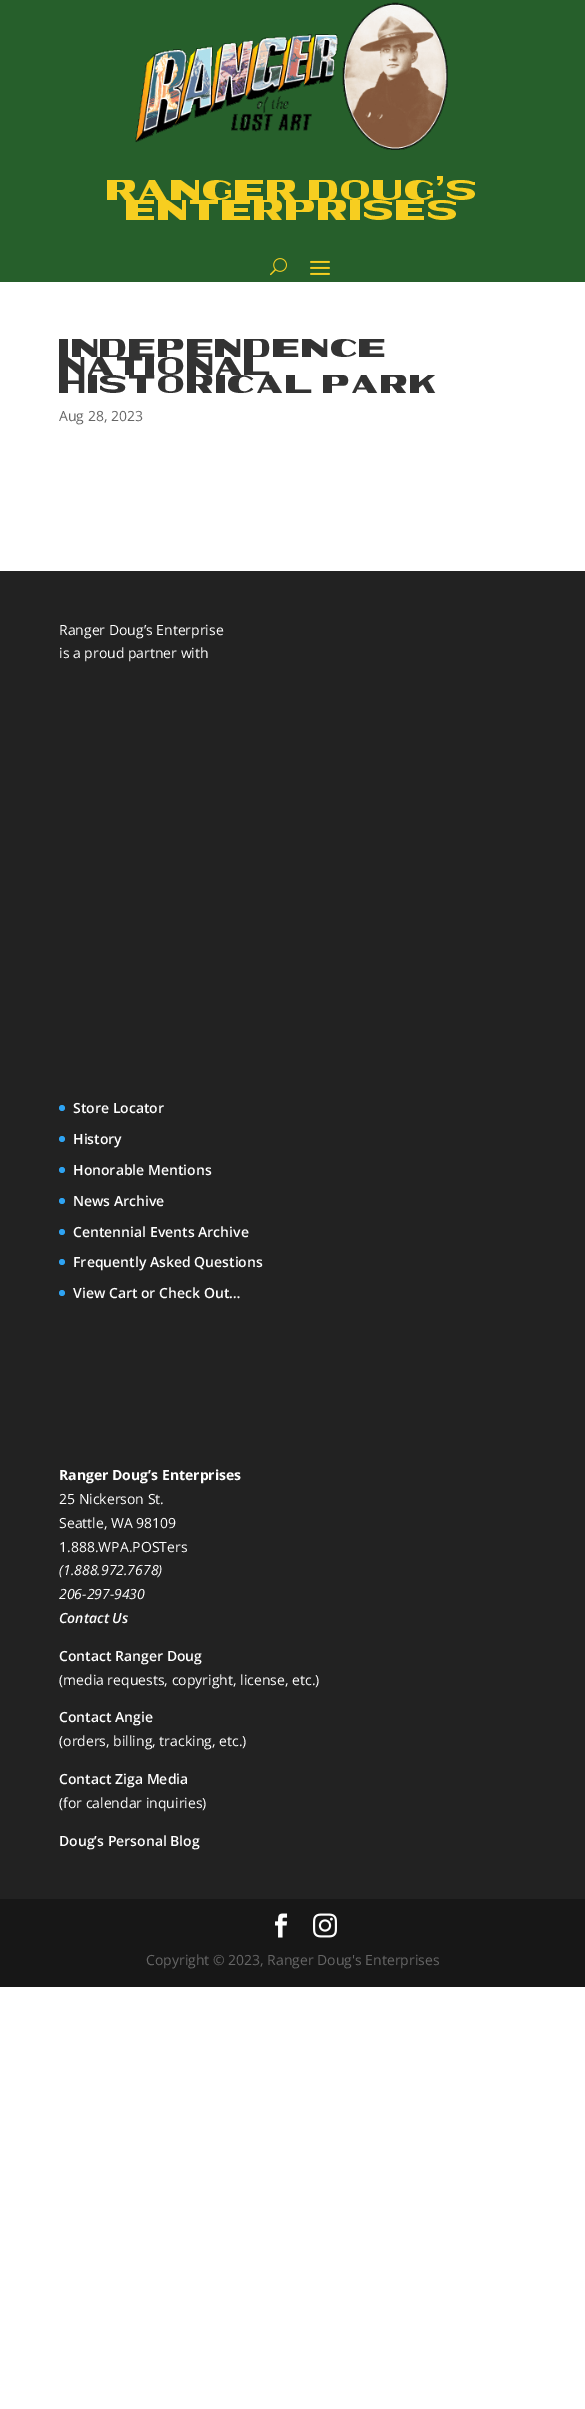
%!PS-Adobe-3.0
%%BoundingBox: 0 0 585 2409
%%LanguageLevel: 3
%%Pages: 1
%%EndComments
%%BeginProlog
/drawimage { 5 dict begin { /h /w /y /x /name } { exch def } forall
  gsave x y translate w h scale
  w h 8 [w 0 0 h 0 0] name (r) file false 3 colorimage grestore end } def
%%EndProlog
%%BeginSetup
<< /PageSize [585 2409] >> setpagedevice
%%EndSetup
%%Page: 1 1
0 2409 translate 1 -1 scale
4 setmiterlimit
1 setgray
0 0 585 2409 rectfill
0.149 0.373 0.169 setrgbcolor
0 0 585 282 rectfill
(images/1.raw) 135 2 313 148 drawimage
(images/2.raw) 270 258 17 18 drawimage
(images/3.raw) 310 260 20 15 drawimage
0.133 setgray
0 571 585 1328 rectfill
0.18 0.639 0.949 setrgbcolor
newpath 62 1108 3 0 360 arc closepath fill
newpath 62 1139 3 0 360 arc closepath fill
newpath 62 1170 3 0 360 arc closepath fill
newpath 62 1201 3 0 360 arc closepath fill
newpath 62 1232 3 0 360 arc closepath fill
newpath 62 1262 3 0 360 arc closepath fill
newpath 62 1293 3 0 360 arc closepath fill
0.09 setgray
0 1899 585 88 rectfill
(images/4.raw) 275 1913 13 25 drawimage
(images/5.raw) 313 1913 24 25 drawimage
/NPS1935-Regular [20 0 0 -20 0 0] selectfont
0.969 0.808 0.125 setrgbcolor
107 200 moveto (RANGER DOUG’S) show
126 220 moveto (ENTERPRISES) show
/NPS1935-Regular [18 0 0 -18 0 0] selectfont
0.2 setgray
59 357 moveto (INDEPENDENCE) show
59 375 moveto (NATIONAL) show
59 393 moveto (HISTORICAL PARK) show
/OpenSans-Regular [14 0 0 -14 0 0] selectfont
0.4 setgray
59 421 moveto (Aug 28, 2023) show
1 setgray
59 635 moveto (Ranger Doug’s Enterprise) show
59 658 moveto (is a proud partner with) show
/OpenSans-SemiBold [14 0 0 -14 0 0] selectfont
73 1113 moveto (Store Locator) show
73 1144 moveto (History) show
73 1175 moveto (Honorable Mentions) show
73 1206 moveto (News Archive) show
73 1237 moveto (Centennial Events Archive) show
73 1267 moveto (Frequently Asked Questions) show
73 1298 moveto (View Cart or Check Out…) show
/OpenSans-Bold [14 0 0 -14 0 0] selectfont
59 1480 moveto (Ranger Doug’s Enterprises) show
/OpenSans-Regular [14 0 0 -14 0 0] selectfont
59 1504 moveto (25 Nickerson St.) show
59 1528 moveto (Seattle, WA 98109) show
59 1552 moveto (1.888.WPA.POSTers) show
/OpenSans-Italic [14 0 0 -14 0 0] selectfont
59 1575 moveto (\(1.888.972.7678\)) show
59 1599 moveto (206-297-9430) show
/OpenSans-SemiBoldItalic [14 0 0 -14 0 0] selectfont
59 1623 moveto (Contact Us) show
/OpenSans-SemiBold [14 0 0 -14 0 0] selectfont
59 1661 moveto (Contact Ranger Doug) show
/OpenSans-Regular [14 0 0 -14 0 0] selectfont
59 1685 moveto (\(media requests, copyright, license, etc.\)) show
/OpenSans-SemiBold [14 0 0 -14 0 0] selectfont
59 1722 moveto (Contact Angie) show
/OpenSans-Regular [14 0 0 -14 0 0] selectfont
59 1746 moveto (\(orders, billing, tracking, etc.\)) show
/OpenSans-SemiBold [14 0 0 -14 0 0] selectfont
59 1784 moveto (Contact Ziga Media) show
/OpenSans-Regular [14 0 0 -14 0 0] selectfont
59 1808 moveto (\(for calendar inquiries\)) show
/OpenSans-SemiBold [14 0 0 -14 0 0] selectfont
59 1846 moveto (Doug’s Personal Blog) show
/OpenSans-Regular [14 0 0 -14 0 0] selectfont
0.4 setgray
146 1965 moveto (Copyright © 2023, Ranger Doug's Enterprises) show
showpage
%%EOF
